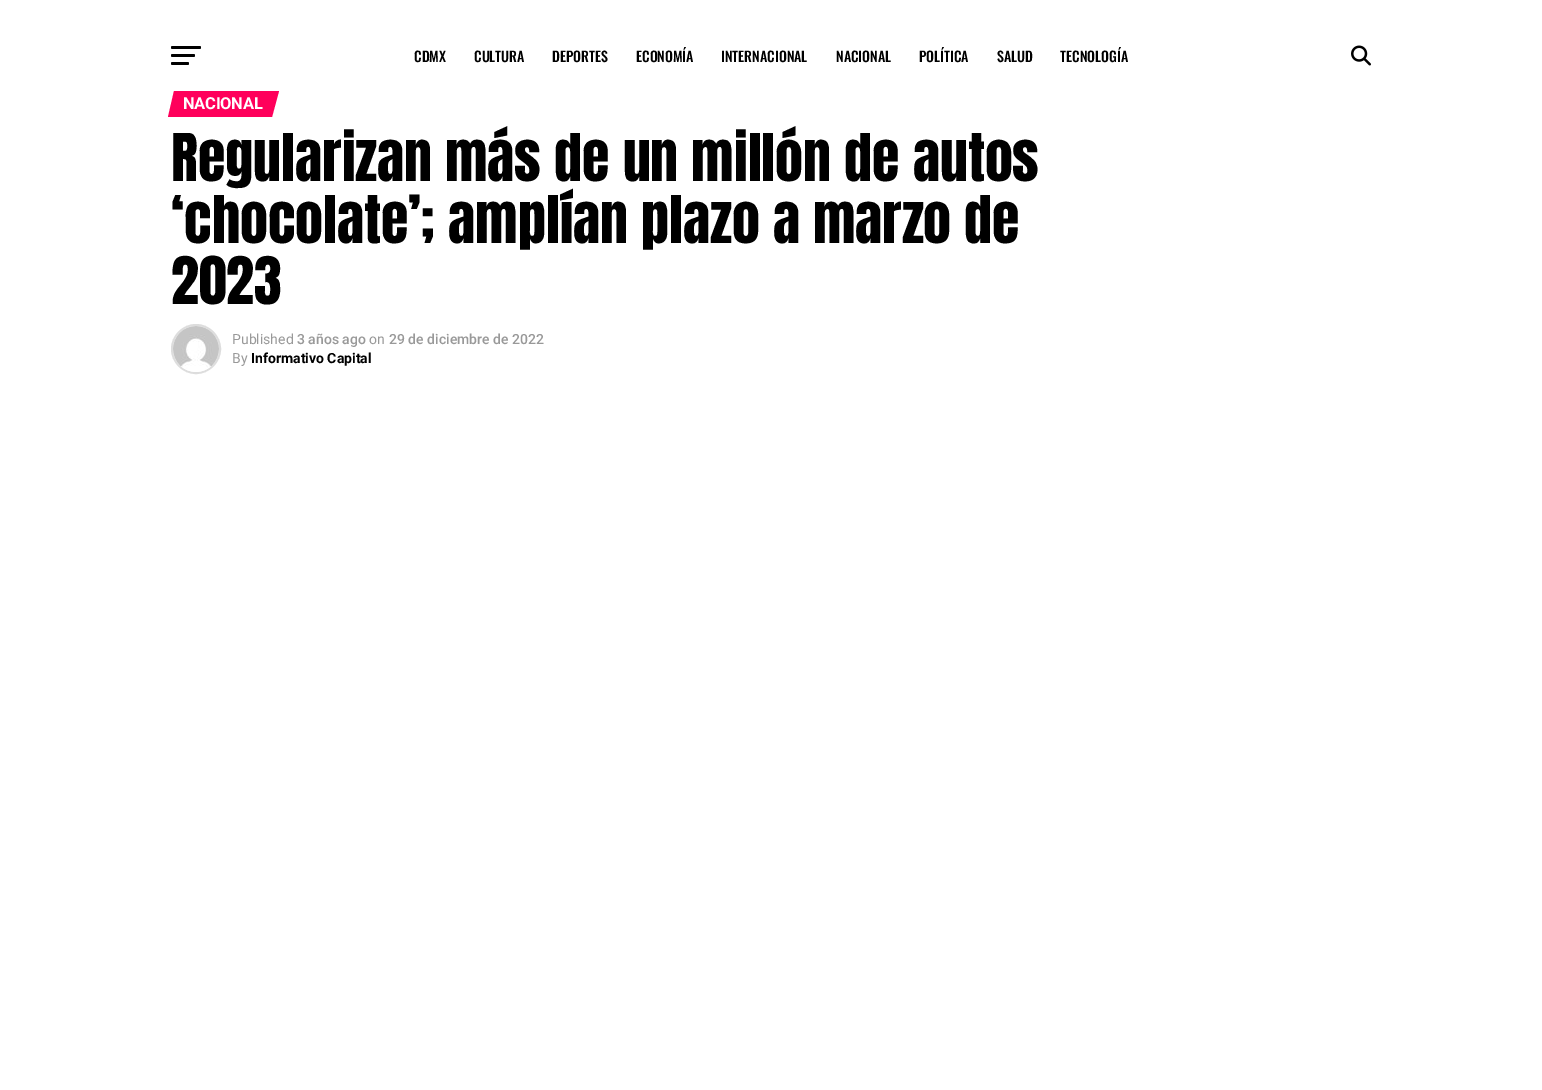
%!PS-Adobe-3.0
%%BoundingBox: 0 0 1542 1090
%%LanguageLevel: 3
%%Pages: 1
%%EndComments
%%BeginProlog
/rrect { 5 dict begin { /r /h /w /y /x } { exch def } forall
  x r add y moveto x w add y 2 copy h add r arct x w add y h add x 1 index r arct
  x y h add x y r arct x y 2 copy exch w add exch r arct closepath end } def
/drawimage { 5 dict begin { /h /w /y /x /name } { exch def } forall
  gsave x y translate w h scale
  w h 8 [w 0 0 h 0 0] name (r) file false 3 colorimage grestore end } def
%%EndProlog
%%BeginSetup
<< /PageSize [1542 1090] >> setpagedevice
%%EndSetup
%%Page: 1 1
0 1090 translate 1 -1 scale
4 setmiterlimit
1 setgray
0 0 1542 1090 rectfill
0 setgray
171 46 30 3 1.5 rrect fill
171 54 24 3 1.5 rrect fill
171 62 18 3 1.5 rrect fill
(images/1.raw) 1351 45 20 21 drawimage
1 0 0.357 setrgbcolor
newpath 174 91 moveto 279 91 lineto 272 117 lineto 168 117 lineto closepath fill
0.867 setgray
2 setlinewidth
newpath 196 349 24 0 360 arc closepath stroke
(images/2.raw) 173 326 46 46 drawimage
/Oswald-Medium [14 0 0 -14 0 0] selectfont
0 setgray
414 62 moveto (CDMX) show
474 62 moveto (CULTURA) show
552 62 moveto (DEPORTES) show
636 62 moveto (ECONOMÍA) show
721 62 moveto (INTERNACIONAL) show
836 62 moveto (NACIONAL) show
919 62 moveto (POLÍTICA) show
997 62 moveto (SALUD) show
1060 62 moveto (TECNOLOGÍA) show
/Roboto-Bold [16.5 0 0 -16.5 0 0] selectfont
1 setgray
183 109 moveto -0.25 0 (NACIONAL) ashow
/Anton-Regular [56 0 0 -56 0 0] selectfont
0 setgray
171 181 moveto (Regularizan más de un millón de autos) show
171 243 moveto (‘chocolate’; amplían plazo a marzo de) show
171 304 moveto (2023) show
/Roboto-Regular [14 0 0 -14 0 0] selectfont
0.6 setgray
232 344 moveto (Published) show
/Roboto-Medium [14 0 0 -14 0 0] selectfont
297 344 moveto (3 años ago) show
/Roboto-Regular [14 0 0 -14 0 0] selectfont
369 344 moveto (on) show
/Roboto-Medium [14 0 0 -14 0 0] selectfont
389 344 moveto (29 de diciembre de 2022) show
/Roboto-Regular [14 0 0 -14 0 0] selectfont
232 363 moveto (By) show
/Roboto-Bold [14 0 0 -14 0 0] selectfont
0 setgray
251 363 moveto (Informativo Capital) show
showpage
%%EOF
